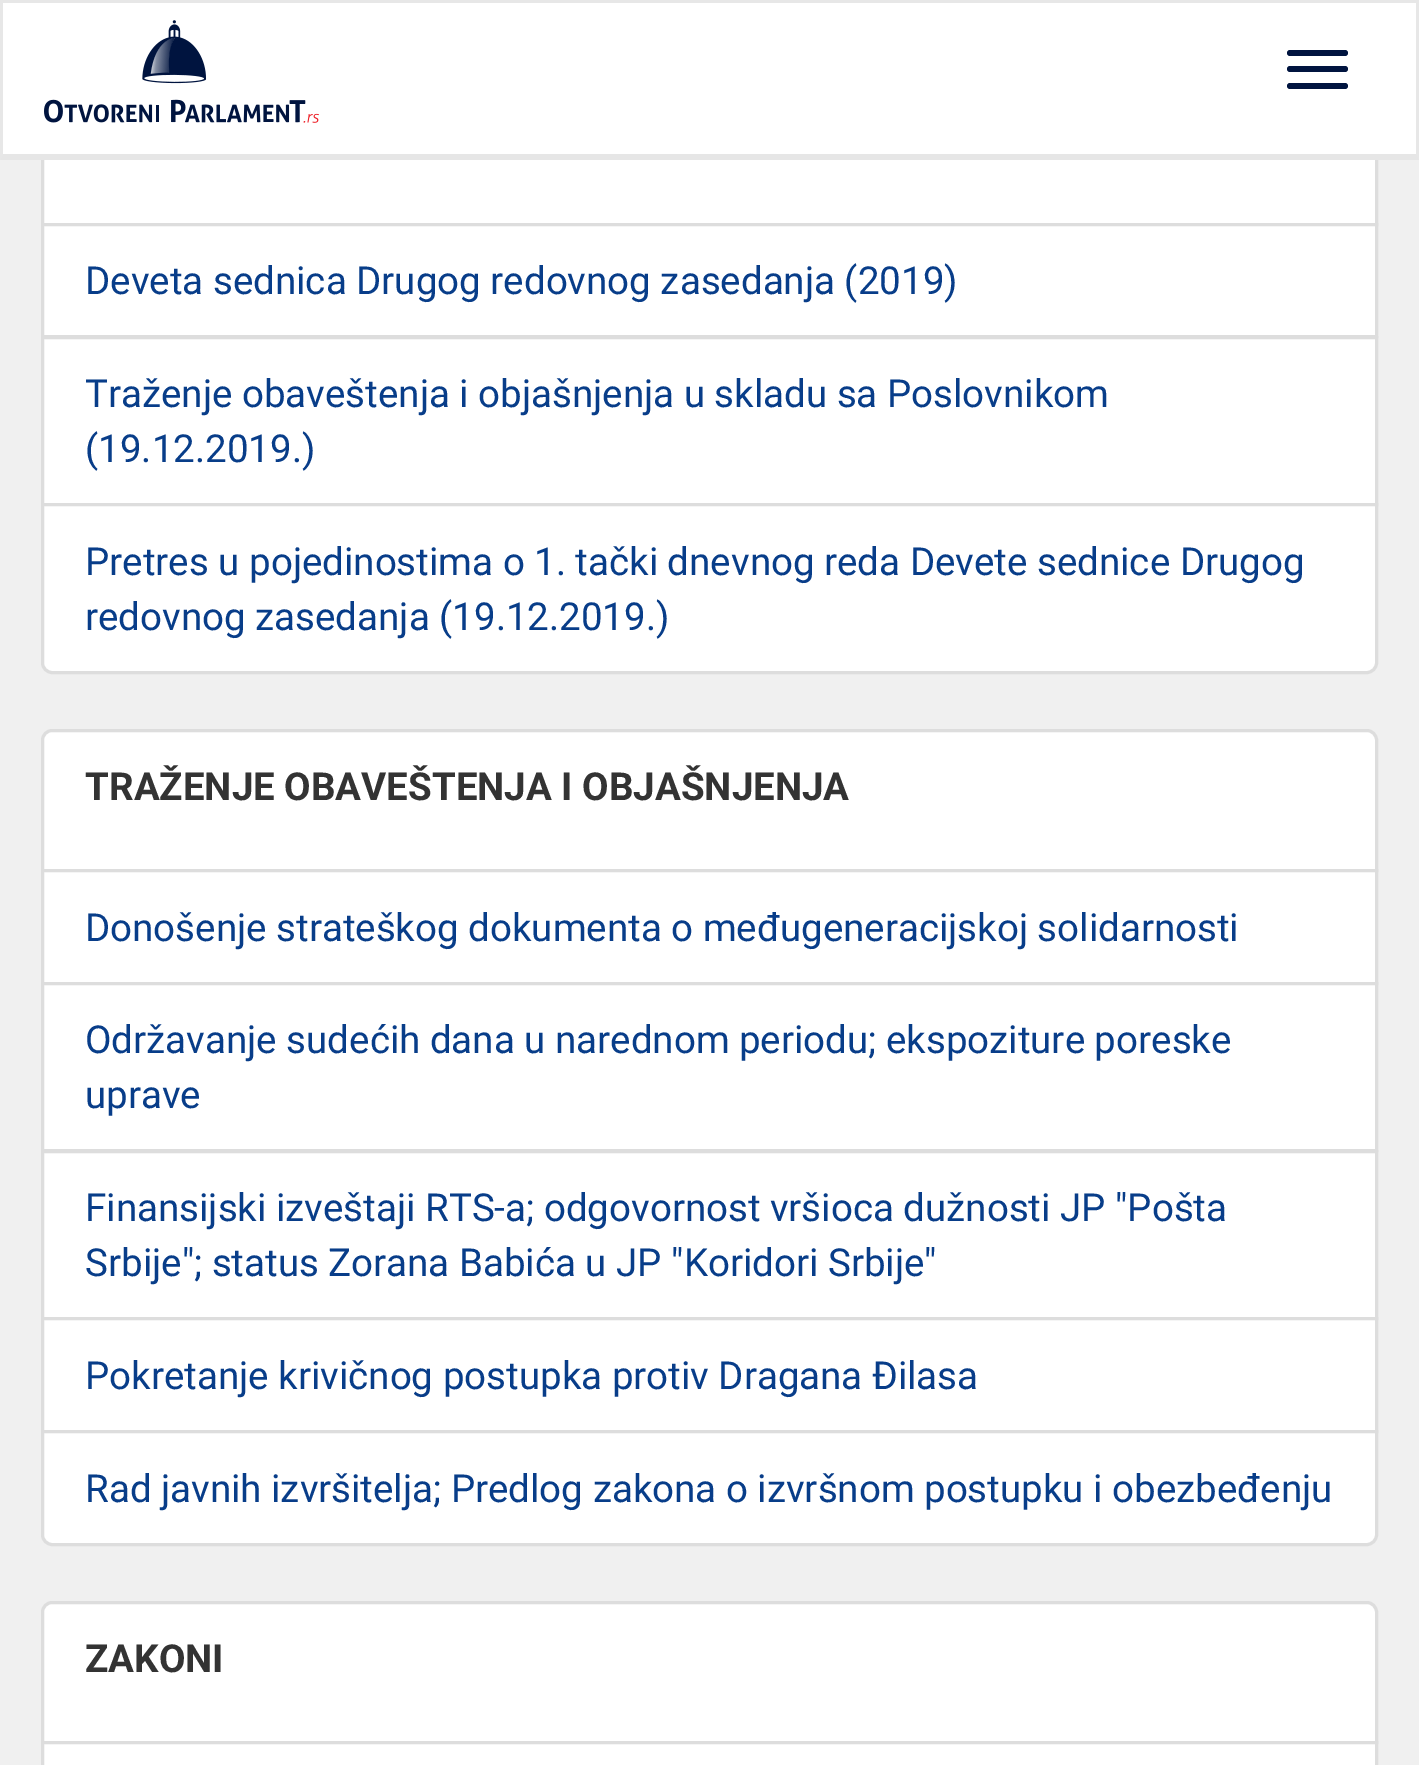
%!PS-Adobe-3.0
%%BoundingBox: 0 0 1419 1765
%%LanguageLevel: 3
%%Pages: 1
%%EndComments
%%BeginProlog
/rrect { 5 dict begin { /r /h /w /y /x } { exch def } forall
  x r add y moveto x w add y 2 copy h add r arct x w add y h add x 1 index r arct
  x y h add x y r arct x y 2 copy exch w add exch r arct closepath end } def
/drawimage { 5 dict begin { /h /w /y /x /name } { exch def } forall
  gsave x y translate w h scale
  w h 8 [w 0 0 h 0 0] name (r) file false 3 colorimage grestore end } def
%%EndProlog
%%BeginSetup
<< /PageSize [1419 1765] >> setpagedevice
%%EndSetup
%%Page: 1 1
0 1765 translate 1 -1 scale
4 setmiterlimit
0.941 setgray
0 0 1419 1765 rectfill
1 setgray
44 160 1331 63 rectfill
0.867 setgray
3 setlinewidth
42.5 84.5 1334 140 rectstroke
1 setgray
3 3 1413 151 rectfill
0.906 setgray
0 0 1419 3 rectfill
newpath 1419 0 moveto 1419 160 lineto 1416 154 lineto 1416 3 lineto closepath fill
0.902 setgray
newpath 1419 160 moveto 0 160 lineto 3 154 lineto 1416 154 lineto closepath fill
0.906 setgray
newpath 0 160 moveto 0 0 lineto 3 3 lineto 3 154 lineto closepath fill
(images/1.raw) 44 20 275 103 drawimage
0 0.078 0.247 setrgbcolor
1287 50 61 6 3 rrect fill
1287 66 61 6 3 rrect fill
1287 83 61 6 3 rrect fill
1 setgray
newpath 42.5 224.5 moveto 1376.5 224.5 lineto 1376.5 336.5 lineto 42.5 336.5 lineto closepath gsave fill grestore
0.867 setgray
stroke
1 setgray
newpath 42.5 337.5 moveto 1376.5 337.5 lineto 1376.5 504.5 lineto 42.5 504.5 lineto closepath gsave fill grestore
0.867 setgray
stroke
1 setgray
newpath 42.5 504.5 moveto 1376.5 504.5 lineto 1376.5 663 lineto 1376.5 668 1372 672.5 1367 672.5 curveto 52 672.5 lineto 47 672.5 42.5 668 42.5 663 curveto closepath gsave fill grestore
0.867 setgray
stroke
1 setgray
newpath 52 730.5 moveto 1367 730.5 lineto 1372 730.5 1376.5 735 1376.5 740 curveto 1376.5 870.5 lineto 42.5 870.5 lineto 42.5 740 lineto 42.5 735 47 730.5 52 730.5 curveto closepath gsave fill grestore
0.867 setgray
stroke
1 setgray
newpath 42.5 870.5 moveto 1376.5 870.5 lineto 1376.5 983.5 lineto 42.5 983.5 lineto closepath gsave fill grestore
0.867 setgray
stroke
1 setgray
newpath 42.5 983.5 moveto 1376.5 983.5 lineto 1376.5 1150.5 lineto 42.5 1150.5 lineto closepath gsave fill grestore
0.867 setgray
stroke
1 setgray
newpath 42.5 1151.5 moveto 1376.5 1151.5 lineto 1376.5 1318.5 lineto 42.5 1318.5 lineto closepath gsave fill grestore
0.867 setgray
stroke
1 setgray
newpath 42.5 1318.5 moveto 1376.5 1318.5 lineto 1376.5 1431.5 lineto 42.5 1431.5 lineto closepath gsave fill grestore
0.867 setgray
stroke
1 setgray
newpath 42.5 1431.5 moveto 1376.5 1431.5 lineto 1376.5 1535 lineto 1376.5 1540 1372 1544.5 1367 1544.5 curveto 52 1544.5 lineto 47 1544.5 42.5 1540 42.5 1535 curveto closepath gsave fill grestore
0.867 setgray
stroke
1 setgray
newpath 52 1602.5 moveto 1367 1602.5 lineto 1372 1602.5 1376.5 1607 1376.5 1612 curveto 1376.5 1742.5 lineto 42.5 1742.5 lineto 42.5 1612 lineto 42.5 1607 47 1602.5 52 1602.5 curveto closepath gsave fill grestore
0.867 setgray
stroke
1 setgray
newpath 42.5 1742.5 moveto 1376.5 1742.5 lineto 1376.5 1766.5 lineto 42.5 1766.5 lineto closepath gsave fill grestore
0.867 setgray
stroke
/Roboto-Regular [38.5 0 0 -38.5 0 0] selectfont
0.031 0.239 0.537 setrgbcolor
85 294 moveto (Deveta sednica Drugog redovnog zasedanja \(2019\)) show
85 407 moveto (Traženje obaveštenja i objašnjenja u skladu sa Poslovnikom) show
85 462 moveto (\(19.12.2019.\)) show
85 575 moveto (Pretres u pojedinostima o 1. tački dnevnog reda Devete sednice Drugog) show
85 630 moveto (redovnog zasedanja \(19.12.2019.\)) show
/Roboto-Bold [38.5 0 0 -38.5 0 0] selectfont
0.2 setgray
85 800 moveto (TRAŽENJE OBAVEŠTENJA I OBJAŠNJENJA) show
/Roboto-Regular [38.5 0 0 -38.5 0 0] selectfont
0.031 0.239 0.537 setrgbcolor
85 941 moveto (Donošenje strateškog dokumenta o međugeneracijskoj solidarnosti) show
85 1053 moveto (Održavanje sudećih dana u narednom periodu; ekspoziture poreske) show
85 1108 moveto (uprave) show
85 1221 moveto (Finansijski izveštaji RTS-a; odgovornost vršioca dužnosti JP "Pošta) show
85 1276 moveto (Srbije"; status Zorana Babića u JP "Koridori Srbije") show
85 1389 moveto (Pokretanje krivičnog postupka protiv Dragana Đilasa) show
85 1502 moveto (Rad javnih izvršitelja; Predlog zakona o izvršnom postupku i obezbeđenju) show
/Roboto-Bold [38.5 0 0 -38.5 0 0] selectfont
0.2 setgray
85 1672 moveto (ZAKONI) show
showpage
%%EOF
